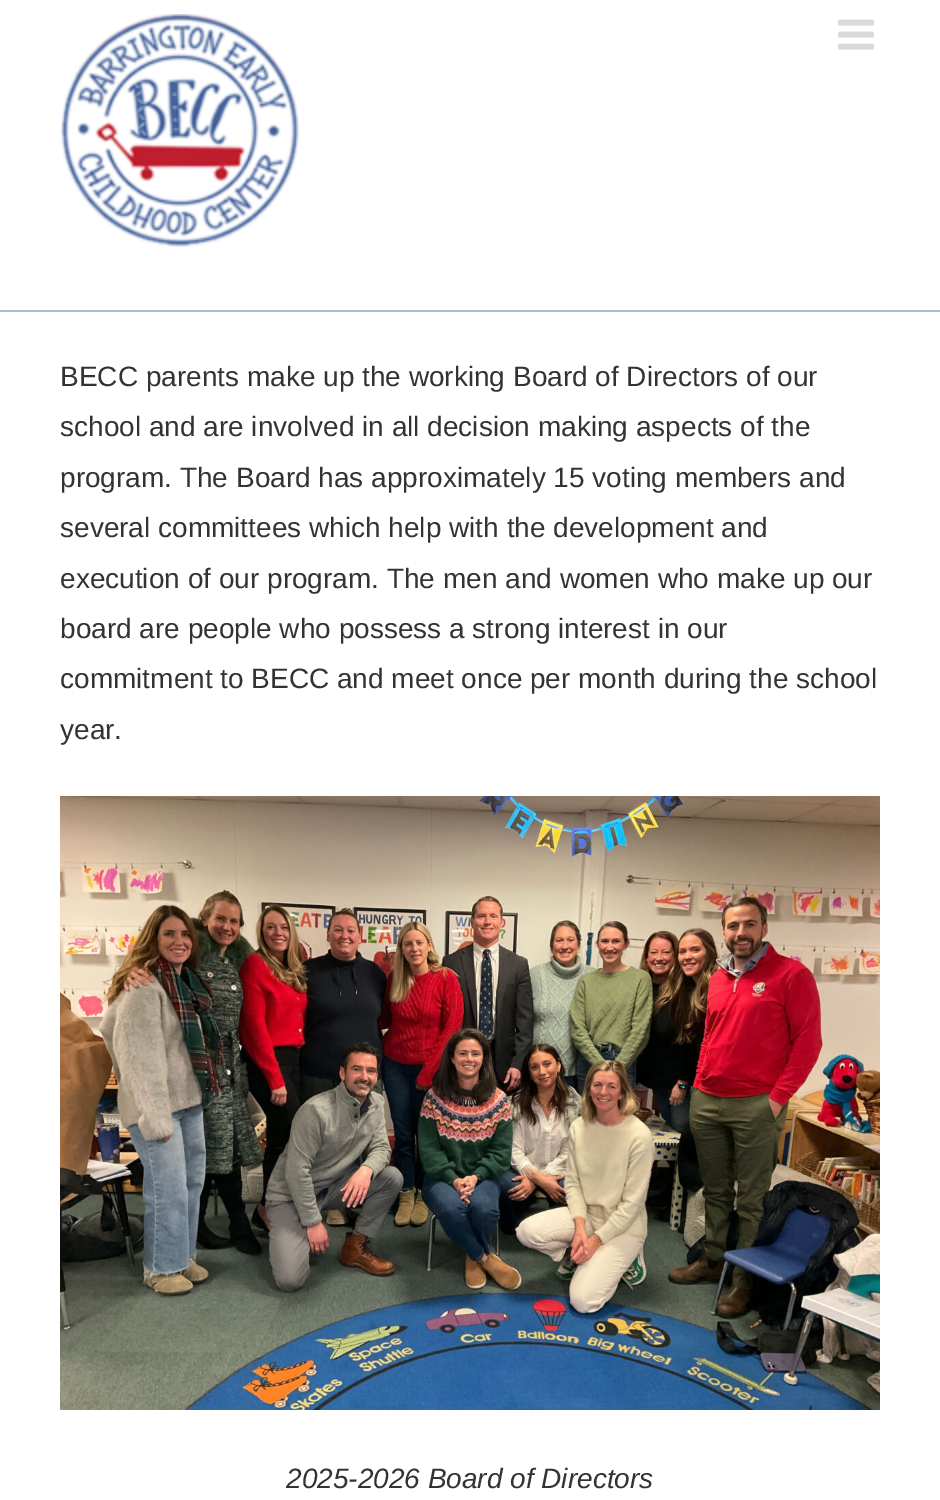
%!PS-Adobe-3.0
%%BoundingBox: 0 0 940 1500
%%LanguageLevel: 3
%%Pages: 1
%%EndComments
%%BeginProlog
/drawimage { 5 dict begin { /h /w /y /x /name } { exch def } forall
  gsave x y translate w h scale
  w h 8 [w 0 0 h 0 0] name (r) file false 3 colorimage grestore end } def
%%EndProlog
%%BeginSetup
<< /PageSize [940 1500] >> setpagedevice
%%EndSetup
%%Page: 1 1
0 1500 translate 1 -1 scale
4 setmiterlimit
1 setgray
0 0 940 1500 rectfill
0.686 0.741 0.831 setrgbcolor
0 310 940 2 rectfill
(images/1.raw) 61 14 239 233 drawimage
(images/2.raw) 838 19 36 31 drawimage
(images/3.raw) 60 796 820 614 drawimage
/LiberationSans-Regular [28 0 0 -28 0 0] selectfont
0.2 setgray
60 386 moveto (BECC parents make up the working Board of Directors of our) show
60 436 moveto (school and are involved in all decision making aspects of the) show
60 487 moveto (program. The Board has approximately 15 voting members and) show
60 537 moveto (several committees which help with the development and) show
60 588 moveto (execution of our program. The men and women who make up our) show
60 638 moveto (board are people who possess a strong interest in our) show
60 688 moveto (commitment to BECC and meet once per month during the school) show
60 739 moveto (year.) show
/LiberationSans-Italic [28 0 0 -28 0 0] selectfont
286 1488 moveto (2025-2026 Board of Directors) show
showpage
%%EOF
